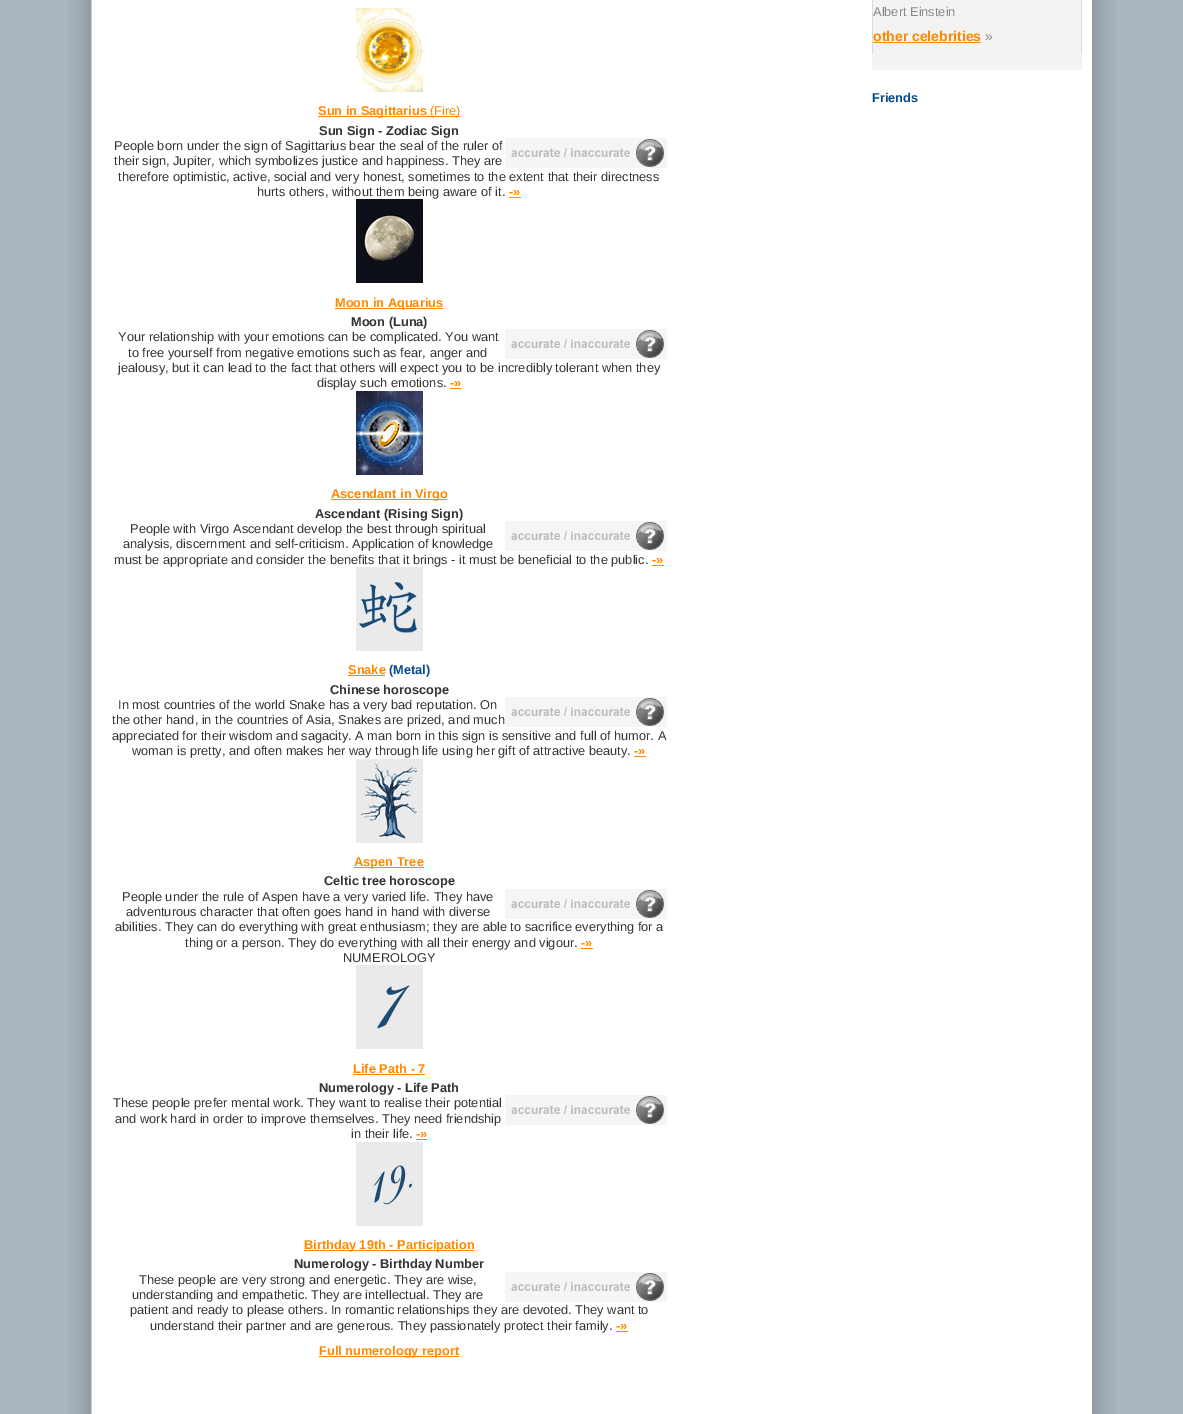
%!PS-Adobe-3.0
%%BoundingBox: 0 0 1183 1414
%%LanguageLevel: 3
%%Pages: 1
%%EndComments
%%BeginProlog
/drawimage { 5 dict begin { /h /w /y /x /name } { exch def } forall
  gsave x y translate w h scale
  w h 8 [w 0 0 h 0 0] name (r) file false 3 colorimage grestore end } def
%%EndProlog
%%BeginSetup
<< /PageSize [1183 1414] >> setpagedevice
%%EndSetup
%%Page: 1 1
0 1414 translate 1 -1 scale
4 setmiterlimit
0.671 0.714 0.757 setrgbcolor
0 0 1183 1414 rectfill
(images/1.raw) 66 0 1051 1414 drawimage
1 setgray
1091 0 1 1414 rectfill
0.953 setgray
873 0 208 54 rectfill
0.855 setgray
1081 0 1 54 rectfill
872 0 1 54 rectfill
1 0.533 0 setrgbcolor
873 42 108 1 rectfill
0.953 setgray
872 54 210 16 rectfill
(images/2.raw) 356 8 67 84 drawimage
1 0.533 0 setrgbcolor
318 116 142 1 rectfill
(images/3.raw) 505 138 162 30 drawimage
509 197 12 1 rectfill
(images/4.raw) 356 199 67 84 drawimage
335 308 108 1 rectfill
(images/3.raw) 505 329 162 30 drawimage
450 388 11 1 rectfill
(images/5.raw) 356 391 67 84 drawimage
331 499 116 1 rectfill
(images/3.raw) 505 521 162 30 drawimage
652 565 12 1 rectfill
(images/6.raw) 356 567 67 84 drawimage
348 675 37 1 rectfill
(images/3.raw) 505 697 162 30 drawimage
634 756 12 1 rectfill
(images/7.raw) 356 759 67 84 drawimage
354 867 70 1 rectfill
(images/3.raw) 505 889 162 30 drawimage
581 948 12 1 rectfill
(images/8.raw) 356 965 67 84 drawimage
353 1074 72 1 rectfill
(images/3.raw) 505 1095 162 30 drawimage
416 1139 11 1 rectfill
(images/9.raw) 356 1142 67 84 drawimage
304 1250 170 1 rectfill
(images/3.raw) 505 1272 162 30 drawimage
616 1331 12 1 rectfill
319 1356 140 1 rectfill
/LiberationSans-Regular [12.8 0 0 -12.8 0 0] selectfont
0.533 setgray
873 16 moveto (Albert Einstein) show
/LiberationSans-Bold [14 0 0 -14 0 0] selectfont
1 0.533 0 setrgbcolor
873 41 moveto (other celebrities) show
/LiberationSans-Regular [14 0 0 -14 0 0] selectfont
0.533 setgray
985 41 moveto (») show
/LiberationSans-Bold [12.8 0 0 -12.8 0 0] selectfont
0.024 0.286 0.553 setrgbcolor
872 102 moveto (Friends) show
1 0.533 0 setrgbcolor
318 115 moveto (Sun in Sagittarius) show
/LiberationSans-Regular [12.8 0 0 -12.8 0 0] selectfont
430 115 moveto (\(Fire\)) show
/LiberationSans-Bold [12.8 0 0 -12.8 0 0] selectfont
0.2 setgray
319 135 moveto (Sun Sign - Zodiac Sign) show
/LiberationSans-Regular [12.8 0 0 -12.8 0 0] selectfont
114 150 moveto (People born under the sign of Sagittarius bear the seal of the ruler of) show
114 165 moveto (their sign, Jupiter, which symbolizes justice and happiness. They are) show
118 181 moveto (therefore optimistic, active, social and very honest, sometimes to the extent that their directness) show
257 196 moveto (hurts others, without them being aware of it.) show
/LiberationSans-Bold [12.8 0 0 -12.8 0 0] selectfont
1 0.533 0 setrgbcolor
509 196 moveto (-») show
335 307 moveto (Moon in Aquarius) show
0.2 setgray
351 326 moveto (Moon \(Luna\)) show
/LiberationSans-Regular [12.8 0 0 -12.8 0 0] selectfont
118 341 moveto (Your relationship with your emotions can be complicated. You want) show
128 357 moveto (to free yourself from negative emotions such as fear, anger and) show
118 372 moveto (jealousy, but it can lead to the fact that others will expect you to be incredibly tolerant when they) show
317 387 moveto (display such emotions.) show
/LiberationSans-Bold [12.8 0 0 -12.8 0 0] selectfont
1 0.533 0 setrgbcolor
450 387 moveto (-») show
331 498 moveto (Ascendant in Virgo) show
0.2 setgray
315 518 moveto (Ascendant \(Rising Sign\)) show
/LiberationSans-Regular [12.8 0 0 -12.8 0 0] selectfont
130 533 moveto (People with Virgo Ascendant develop the best through spiritual) show
123 548 moveto (analysis, discernment and self-criticism. Application of knowledge) show
114 564 moveto (must be appropriate and consider the benefits that it brings - it must be beneficial to the public.) show
/LiberationSans-Bold [12.8 0 0 -12.8 0 0] selectfont
1 0.533 0 setrgbcolor
652 564 moveto (-») show
348 674 moveto (Snake) show
0.024 0.286 0.553 setrgbcolor
389 674 moveto (\(Metal\)) show
0.2 setgray
330 694 moveto (Chinese horoscope) show
/LiberationSans-Regular [12.8 0 0 -12.8 0 0] selectfont
118 709 moveto (In most countries of the world Snake has a very bad reputation. On) show
112 724 moveto (the other hand, in the countries of Asia, Snakes are prized, and much) show
112 740 moveto (appreciated for their wisdom and sagacity. A man born in this sign is sensitive and full of humor. A) show
132 755 moveto (woman is pretty, and often makes her way through life using her gift of attractive beauty.) show
/LiberationSans-Bold [12.8 0 0 -12.8 0 0] selectfont
1 0.533 0 setrgbcolor
634 755 moveto (-») show
354 866 moveto (Aspen Tree) show
0.2 setgray
324 885 moveto (Celtic tree horoscope) show
/LiberationSans-Regular [12.8 0 0 -12.8 0 0] selectfont
122 901 moveto (People under the rule of Aspen have a very varied life. They have) show
126 916 moveto (adventurous character that often goes hand in hand with diverse) show
115 931 moveto (abilities. They can do everything with great enthusiasm; they are able to sacrifice everything for a) show
185 947 moveto (thing or a person. They do everything with all their energy and vigour.) show
/LiberationSans-Bold [12.8 0 0 -12.8 0 0] selectfont
1 0.533 0 setrgbcolor
581 947 moveto (-») show
/LiberationSans-Regular [12.8 0 0 -12.8 0 0] selectfont
0.2 setgray
343 962 moveto (NUMEROLOGY) show
/LiberationSans-Bold [12.8 0 0 -12.8 0 0] selectfont
1 0.533 0 setrgbcolor
353 1073 moveto (Life Path - 7) show
0.2 setgray
319 1092 moveto (Numerology - Life Path) show
/LiberationSans-Regular [12.8 0 0 -12.8 0 0] selectfont
113 1107 moveto (These people prefer mental work. They want to realise their potential) show
115 1123 moveto (and work hard in order to improve themselves. They need friendship) show
351 1138 moveto (in their life.) show
/LiberationSans-Bold [12.8 0 0 -12.8 0 0] selectfont
1 0.533 0 setrgbcolor
416 1138 moveto (-») show
304 1249 moveto (Birthday 19th - Participation) show
0.2 setgray
294 1268 moveto (Numerology - Birthday Number) show
/LiberationSans-Regular [12.8 0 0 -12.8 0 0] selectfont
139 1284 moveto (These people are very strong and energetic. They are wise,) show
132 1299 moveto (understanding and empathetic. They are intellectual. They are) show
130 1314 moveto (patient and ready to please others. In romantic relationships they are devoted. They want to) show
150 1330 moveto (understand their partner and are generous. They passionately protect their family.) show
/LiberationSans-Bold [12.8 0 0 -12.8 0 0] selectfont
1 0.533 0 setrgbcolor
616 1330 moveto (-») show
319 1355 moveto (Full numerology report) show
showpage
%%EOF
